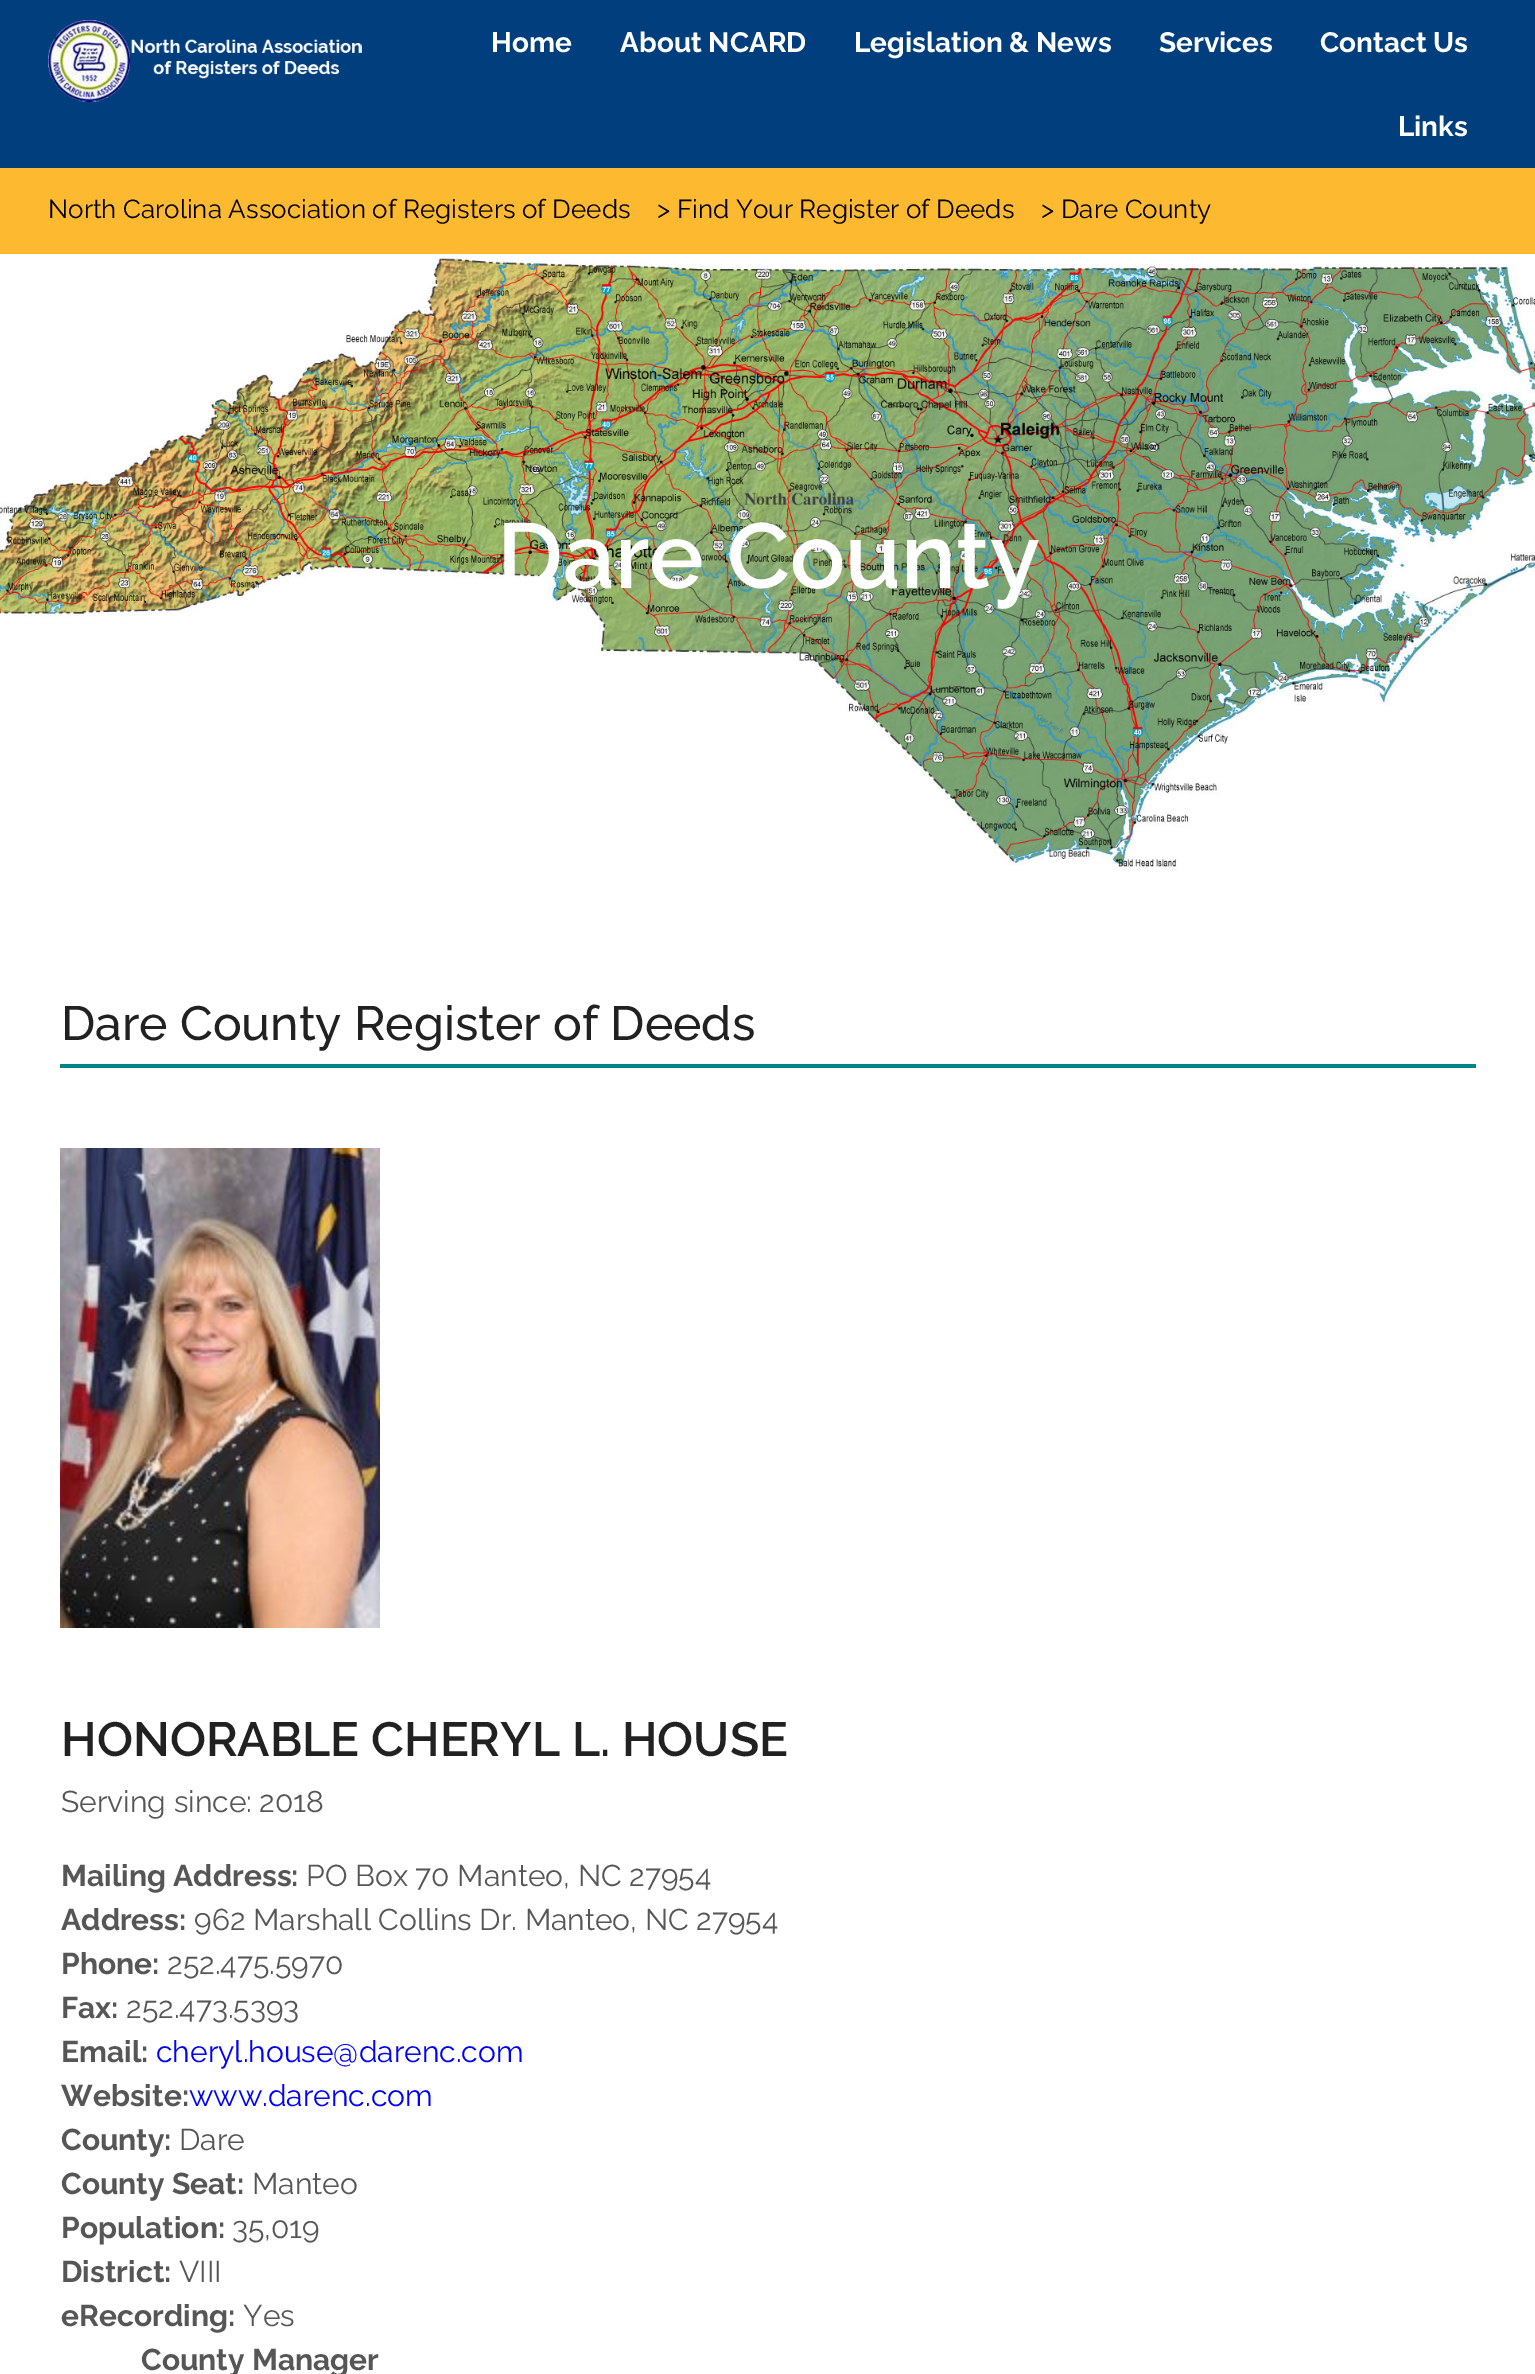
%!PS-Adobe-3.0
%%BoundingBox: 0 0 1535 2374
%%LanguageLevel: 3
%%Pages: 1
%%EndComments
%%BeginProlog
/drawimage { 5 dict begin { /h /w /y /x /name } { exch def } forall
  gsave x y translate w h scale
  w h 8 [w 0 0 h 0 0] name (r) file false 3 colorimage grestore end } def
%%EndProlog
%%BeginSetup
<< /PageSize [1535 2374] >> setpagedevice
%%EndSetup
%%Page: 1 1
0 2374 translate 1 -1 scale
4 setmiterlimit
1 setgray
0 0 1535 2374 rectfill
0 0.243 0.494 setrgbcolor
0 0 1535 168 rectfill
(images/1.raw) 48 20 314 82 drawimage
0.992 0.729 0.192 setrgbcolor
0 168 1535 86 rectfill
(images/2.raw) 0 254 1535 618 drawimage
0.008 0.518 0.518 setrgbcolor
60 1064 1416 4 rectfill
(images/3.raw) 60 1148 320 480 drawimage
/Raleway-Bold [28 0 0 -28 0 0] selectfont
1 setgray
491 52 moveto (Home) show
620 52 moveto (About NCARD) show
854 52 moveto (Legislation & News) show
1159 52 moveto (Services) show
1320 52 moveto (Contact Us) show
1398 136 moveto (Links) show
/Raleway-Thin [26 0 0 -26 0 0] selectfont
0 setgray
48 218 moveto (North Carolina Association of Registers of Deeds) show
657 218 moveto (> Find Your Register of Deeds) show
1041 218 moveto (> Dare County) show
/Raleway-SemiBold [92 0 0 -92 0 0] selectfont
1 setgray
497 588 moveto (Dare County) show
/Raleway-Medium [48 0 0 -48 0 0] selectfont
0.129 setgray
61 1040 moveto (Dare County Register of Deeds) show
/Raleway-SemiBold [48 0 0 -48 0 0] selectfont
61 1756 moveto (HONORABLE CHERYL L. HOUSE) show
/Raleway-Thin [30 0 0 -30 0 0] selectfont
0.337 setgray
61 1812 moveto (Serving since: 2018) show
/Raleway-Bold [30 0 0 -30 0 0] selectfont
61 1886 moveto (Mailing Address:) show
/Raleway-Thin [30 0 0 -30 0 0] selectfont
306 1886 moveto (PO Box 70 Manteo, NC 27954) show
/Raleway-Bold [30 0 0 -30 0 0] selectfont
61 1930 moveto (Address:) show
/Raleway-Thin [30 0 0 -30 0 0] selectfont
194 1930 moveto (962 Marshall Collins Dr. Manteo, NC 27954) show
/Raleway-Bold [30 0 0 -30 0 0] selectfont
61 1974 moveto (Phone:) show
/Raleway-Thin [30 0 0 -30 0 0] selectfont
167 1974 moveto (252.475.5970) show
/Raleway-Bold [30 0 0 -30 0 0] selectfont
61 2018 moveto (Fax:) show
/Raleway-Thin [30 0 0 -30 0 0] selectfont
126 2018 moveto (252.473.5393) show
/Raleway-Bold [30 0 0 -30 0 0] selectfont
61 2062 moveto (Email:) show
/Raleway-Thin [30 0 0 -30 0 0] selectfont
0 0 1 setrgbcolor
156 2062 moveto (cheryl.house@darenc.com) show
/Raleway-Bold [30 0 0 -30 0 0] selectfont
0.337 setgray
61 2106 moveto (Website:) show
/Raleway-Thin [30 0 0 -30 0 0] selectfont
0 0 1 setrgbcolor
189 2106 moveto (www.darenc.com) show
/Raleway-Bold [30 0 0 -30 0 0] selectfont
0.337 setgray
61 2150 moveto (County:) show
/Raleway-Thin [30 0 0 -30 0 0] selectfont
179 2150 moveto (Dare) show
/Raleway-Bold [30 0 0 -30 0 0] selectfont
61 2194 moveto (County Seat:) show
/Raleway-Thin [30 0 0 -30 0 0] selectfont
252 2194 moveto (Manteo) show
/Raleway-Bold [30 0 0 -30 0 0] selectfont
61 2238 moveto (Population:) show
/Raleway-Thin [30 0 0 -30 0 0] selectfont
232 2238 moveto (35,019) show
/Raleway-Bold [30 0 0 -30 0 0] selectfont
61 2282 moveto (District:) show
/Raleway-Thin [30 0 0 -30 0 0] selectfont
179 2282 moveto (VIII) show
/Raleway-Bold [30 0 0 -30 0 0] selectfont
61 2326 moveto (eRecording:) show
/Raleway-Thin [30 0 0 -30 0 0] selectfont
243 2326 moveto (Yes) show
/Raleway-Bold [30 0 0 -30 0 0] selectfont
141 2370 moveto (County Manager) show
showpage
%%EOF
